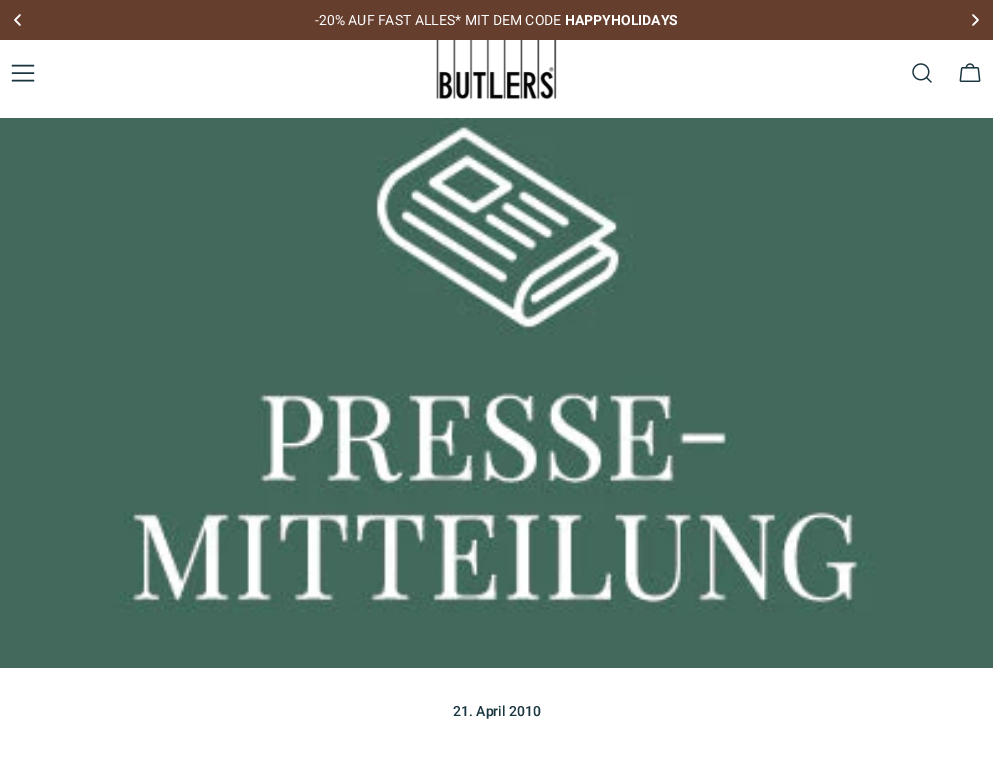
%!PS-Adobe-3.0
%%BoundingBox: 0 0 993 770
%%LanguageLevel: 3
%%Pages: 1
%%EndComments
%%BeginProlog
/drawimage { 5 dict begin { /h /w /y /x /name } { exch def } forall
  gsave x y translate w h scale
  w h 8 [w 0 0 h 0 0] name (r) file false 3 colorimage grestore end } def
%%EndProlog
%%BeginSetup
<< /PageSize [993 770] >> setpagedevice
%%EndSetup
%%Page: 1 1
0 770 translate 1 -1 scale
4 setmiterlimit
1 setgray
0 0 993 770 rectfill
0.396 0.243 0.18 setrgbcolor
0 0 993 40 rectfill
1 setgray
1.5 setlinewidth
1 setlinecap
1 setlinejoin
newpath 20 25 moveto 15 20 lineto 20 15 lineto stroke
newpath 973 15 moveto 978 20 lineto 973 25 lineto stroke
0.098 0.208 0.247 setrgbcolor
newpath 12.5 73 moveto 33.5 73 lineto 12.5 65.5 moveto 33.5 65.5 lineto 12.5 80.5 moveto 33.5 80.5 lineto stroke
(images/1.raw) 436 40 121 60 drawimage
(images/2.raw) 912 63 20 20 drawimage
(images/3.raw) 959 63 22 19 drawimage
(images/4.raw) 0 118 993 550 drawimage
/Roboto-Regular [14 0 0 -14 0 0] selectfont
1 setgray
315 25 moveto (-20% AUF FAST ALLES* MIT DEM CODE) show
/Roboto-Bold [14 0 0 -14 0 0] selectfont
565 25 moveto (HAPPYHOLIDAYS) show
/Roboto-Medium [14 0 0 -14 0 0] selectfont
0.098 0.208 0.247 setrgbcolor
453 716 moveto (21. April 2010) show
showpage
%%EOF
